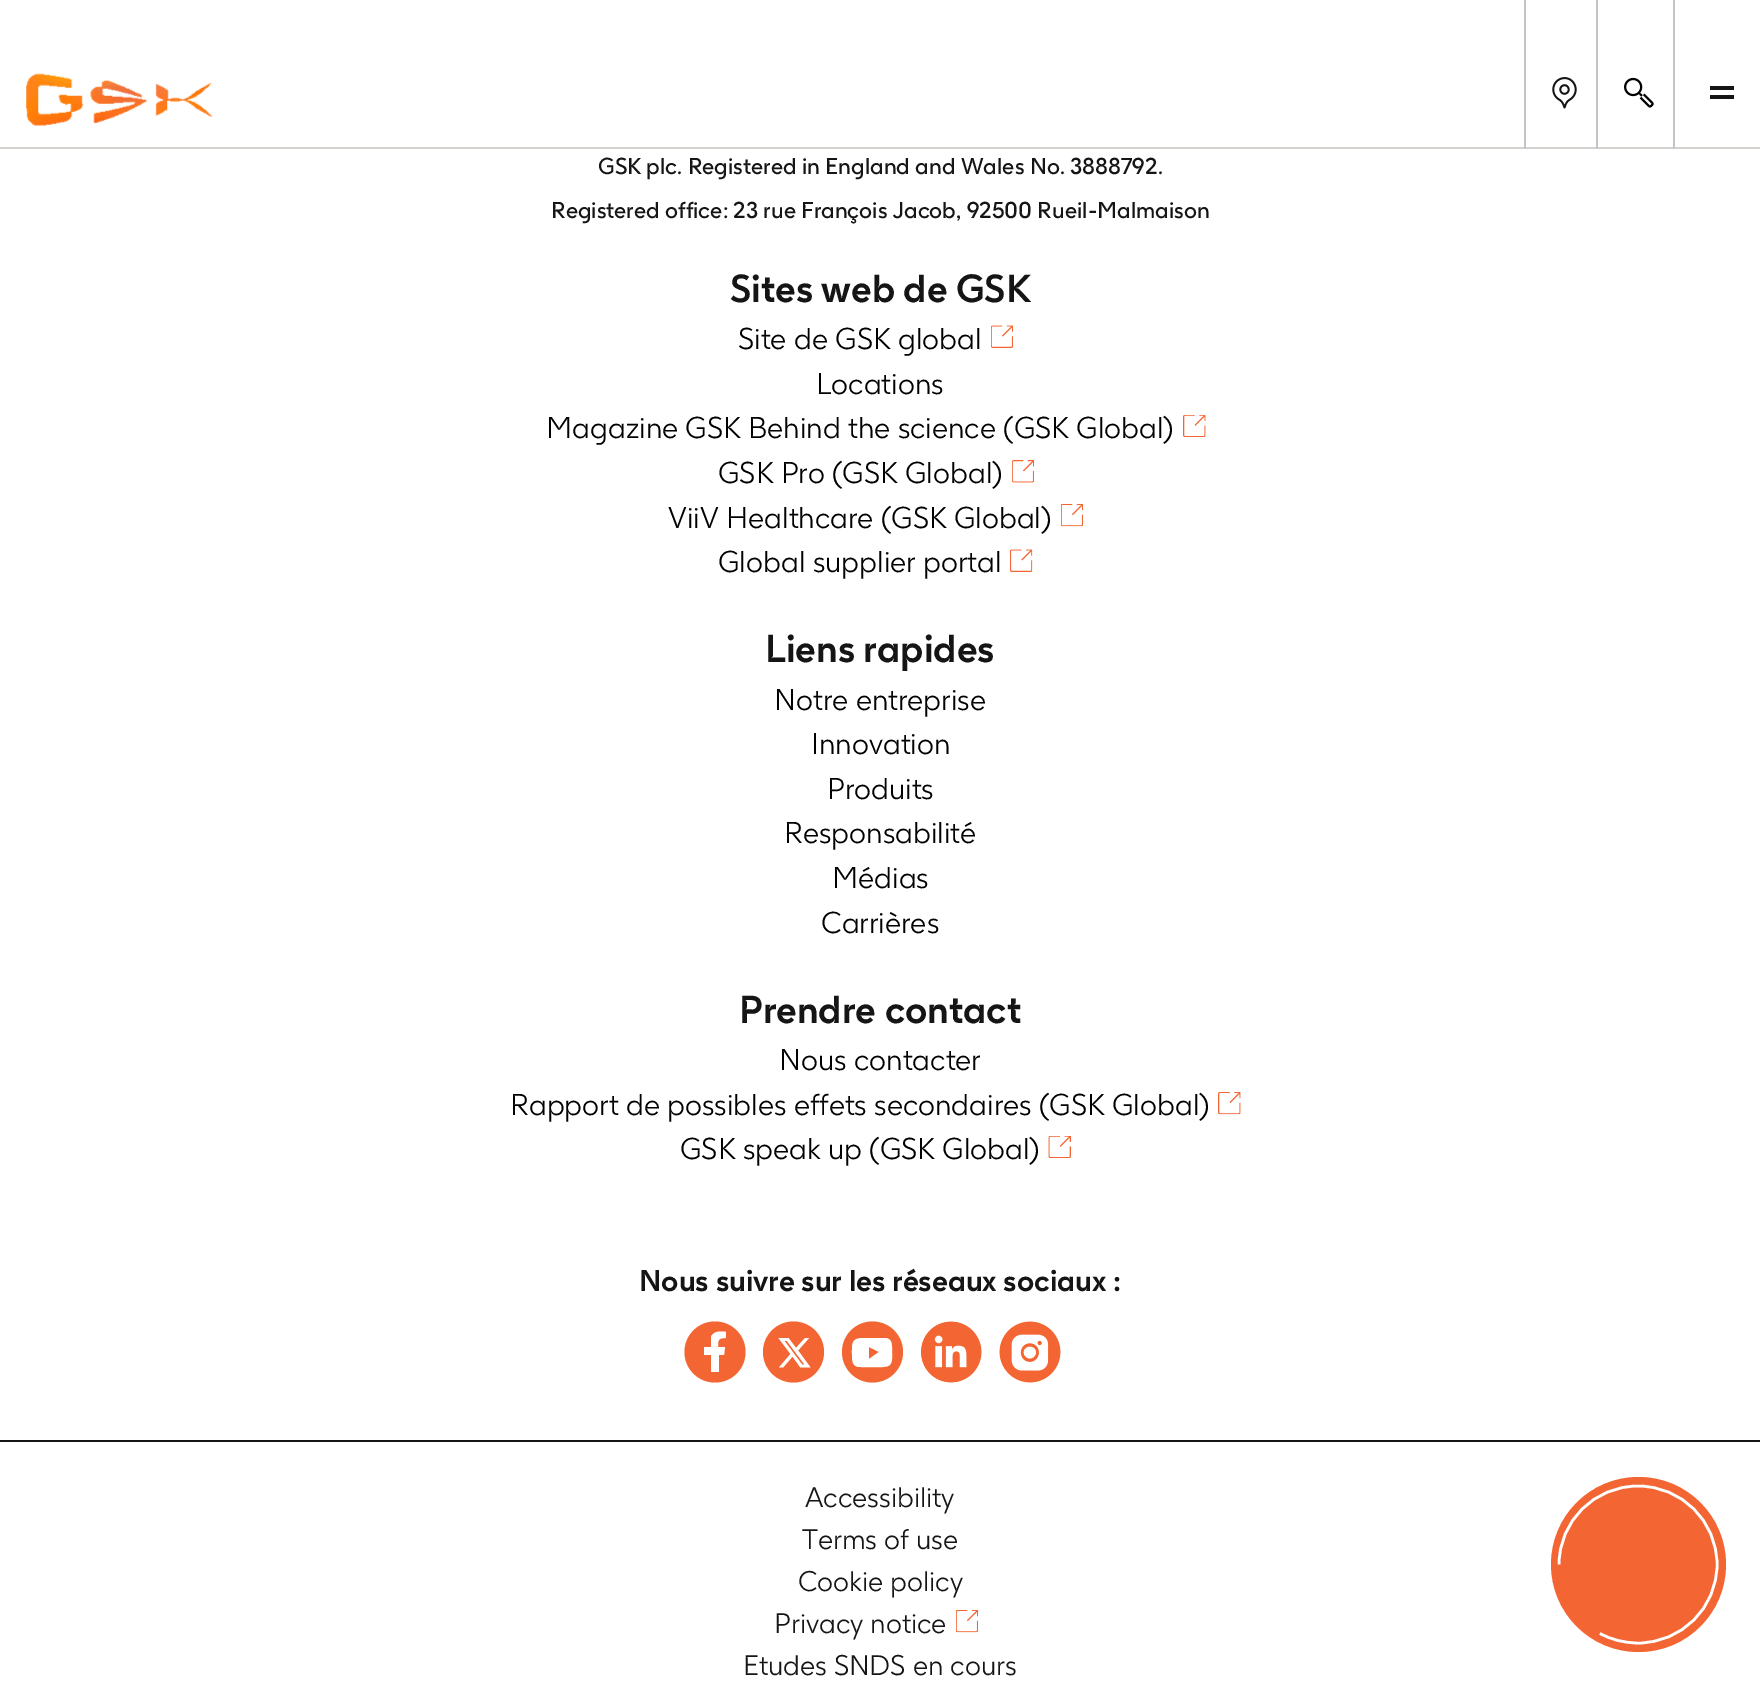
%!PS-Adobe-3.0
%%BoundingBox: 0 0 1760 1686
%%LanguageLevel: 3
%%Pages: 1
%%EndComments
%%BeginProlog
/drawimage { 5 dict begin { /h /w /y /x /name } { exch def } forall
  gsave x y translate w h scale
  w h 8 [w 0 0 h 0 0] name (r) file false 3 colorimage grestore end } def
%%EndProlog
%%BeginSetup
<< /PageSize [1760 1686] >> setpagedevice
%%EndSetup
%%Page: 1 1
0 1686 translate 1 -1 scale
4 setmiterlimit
1 setgray
0 0 1760 1686 rectfill
0.835 0.82 0.808 setrgbcolor
0 147 1760 2 rectfill
(images/1.raw) 26 73 187 53 drawimage
0.769 setgray
1524 0 2 149 rectfill
(images/2.raw) 1552 77 25 32 drawimage
1596 0 2 149 rectfill
(images/3.raw) 1624 77 30 31 drawimage
1673 0 2 149 rectfill
0.082 setgray
1710 86 24 4 rectfill
1710 95 24 4 rectfill
(images/4.raw) 991 325 22 23 drawimage
(images/5.raw) 1183 415 23 22 drawimage
(images/6.raw) 1012 460 22 23 drawimage
(images/7.raw) 1061 504 22 23 drawimage
(images/8.raw) 1010 549 23 23 drawimage
(images/9.raw) 1218 1092 23 23 drawimage
(images/10.raw) 1048 1136 23 22 drawimage
0.953 0.4 0.2 setrgbcolor
newpath 715 1352 30.5 0 360 arc closepath fill
1 setgray
newpath 726 1338 moveto 726 1332 lineto 721 1331 713 1331 711 1337 curveto 711 1347 lineto 704 1347 lineto 704 1355 lineto 711 1355 lineto 711 1372 lineto 719 1372 lineto 719 1355 lineto 724 1355 lineto 725 1347 lineto 718 1347 lineto 718 1340 718 1338 726 1338 curveto closepath eofill
0.953 0.4 0.2 setrgbcolor
newpath 793.5 1352 30.5 0 360 arc closepath fill
1 setgray
newpath 788.5 1338 moveto 778.5 1338 lineto 790.5 1354 lineto 779 1367.5 lineto 783 1367.5 lineto 792.5 1356.5 lineto 800.5 1367.5 lineto 810.5 1367.5 lineto 798 1350.5 lineto 809 1338 lineto 805 1338 lineto 796 1348 lineto closepath 802 1364.5 moveto 784.5 1341 lineto 787 1341 lineto 804.5 1364.5 lineto closepath fill
0.953 0.4 0.2 setrgbcolor
newpath 872.5 1352 30.5 0 360 arc closepath fill
1 setgray
newpath 885 1338 moveto 864 1338 lineto 851 1338 852 1343 852 1355 curveto 852 1360 852 1367 860 1367 curveto 865 1367 884 1368 888 1366 curveto 893 1364 892 1357 892 1352 curveto 892 1347 893 1338 885 1338 curveto closepath 879 1352 moveto 869 1347 lineto 869 1359 lineto closepath eofill
(images/11.raw) 921 1321 61 62 drawimage
(images/12.raw) 999 1321 62 62 drawimage
0.082 setgray
0 1440 1760 2 rectfill
(images/7.raw) 956 1610 22 23 drawimage
0.953 0.4 0.2 setrgbcolor
newpath 1638.5 1564.5 87.5 0 360 arc closepath fill
1 setgray
2.6 setlinewidth
newpath 1559 1564.5 moveto 1559 1521 1594.5 1486 1638 1486 curveto 1681.5 1486 1717 1521 1717 1564.5 curveto 1717 1608 1681.5 1643 1638 1643 curveto 1624 1643 1611 1639.5 1600 1633.5 curveto stroke
/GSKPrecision-Regular [22.75 0 0 -22.75 0 0] selectfont
0.082 setgray
598 174 moveto (GSK plc. Registered in England and Wales No. 3888792.) show
551 218 moveto (Registered office: 23 rue François Jacob, 92500 Rueil-Malmaison) show
/GSKPrecision-Bold [38.5 0 0 -38.5 0 0] selectfont
730 302 moveto (Sites web de GSK) show
/GSKPrecision-Light [29.75 0 0 -29.75 0 0] selectfont
0 setgray
738 349 moveto (Site de GSK global) show
816 394 moveto (Locations) show
546 438 moveto (Magazine GSK Behind the science \(GSK Global\)) show
718 483 moveto (GSK Pro \(GSK Global\)) show
668 528 moveto (ViiV Healthcare \(GSK Global\)) show
718 572 moveto (Global supplier portal) show
/GSKPrecision-Bold [38.5 0 0 -38.5 0 0] selectfont
0.082 setgray
765 662 moveto (Liens rapides) show
/GSKPrecision-Light [29.75 0 0 -29.75 0 0] selectfont
0 setgray
774 710 moveto (Notre entreprise) show
811 754 moveto (Innovation) show
827 799 moveto (Produits) show
784 843 moveto (Responsabilité) show
832 888 moveto (Médias) show
821 933 moveto (Carrières) show
/GSKPrecision-Bold [38.5 0 0 -38.5 0 0] selectfont
0.082 setgray
739 1023 moveto (Prendre contact) show
/GSKPrecision-Light [29.75 0 0 -29.75 0 0] selectfont
0 setgray
779 1070 moveto (Nous contacter) show
510 1115 moveto (Rapport de possibles effets secondaires \(GSK Global\)) show
680 1159 moveto (GSK speak up \(GSK Global\)) show
/GSKPrecision-Bold [29.75 0 0 -29.75 0 0] selectfont
0.082 setgray
639 1291 moveto (Nous suivre sur les réseaux sociaux :) show
/GSKPrecision-Light [28 0 0 -28 0 0] selectfont
805 1507 moveto (Accessibility) show
802 1549 moveto (Terms of use) show
798 1591 moveto (Cookie policy) show
774 1633 moveto (Privacy notice) show
743 1675 moveto (Etudes SNDS en cours) show
showpage
%%EOF
